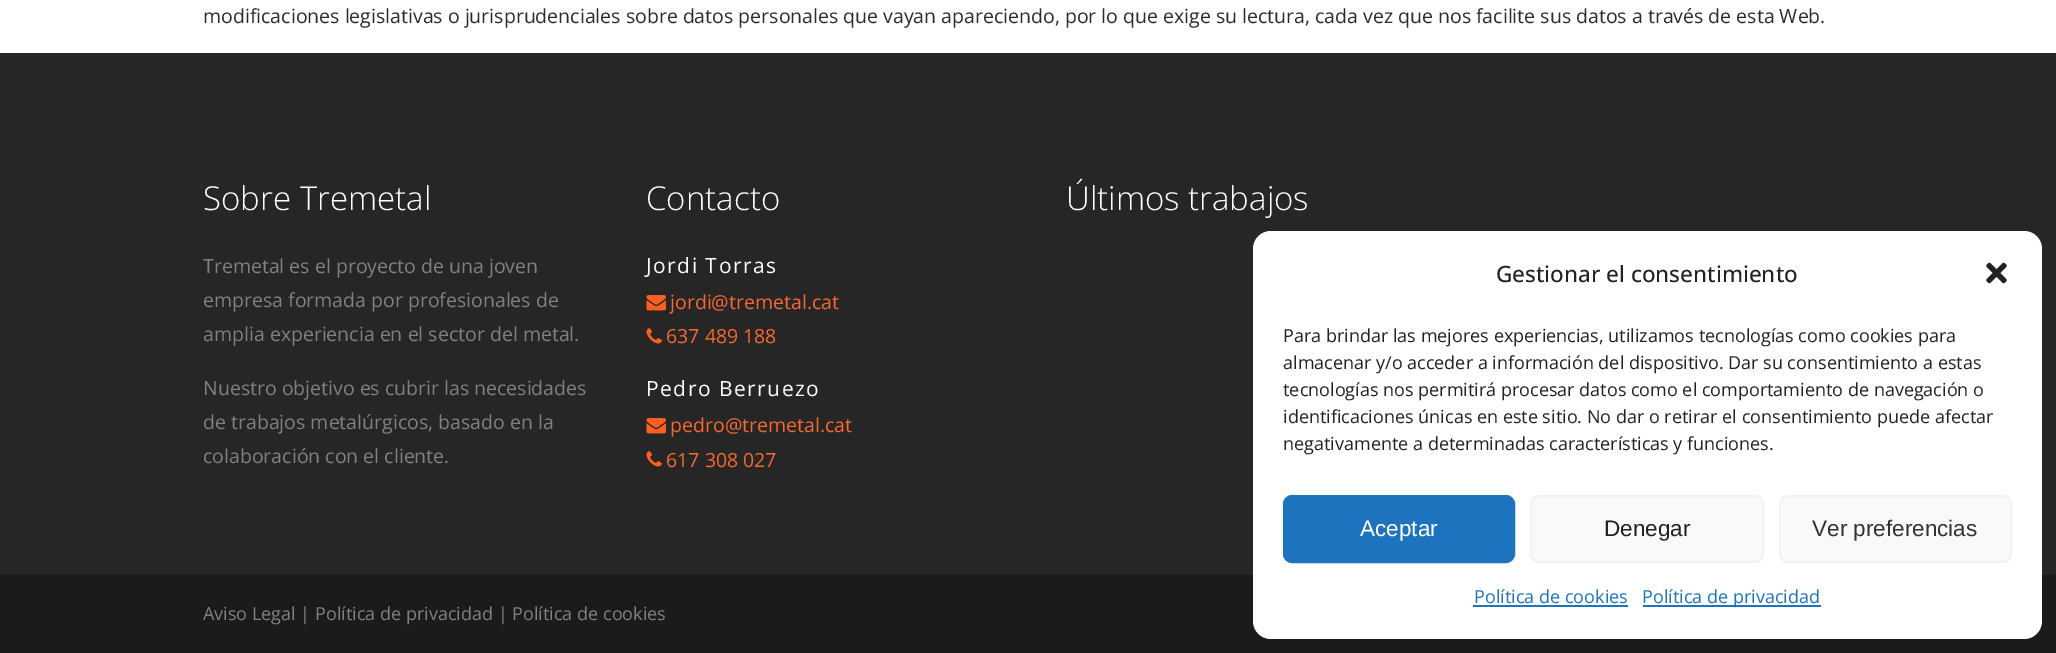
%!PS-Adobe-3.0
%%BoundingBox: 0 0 2056 653
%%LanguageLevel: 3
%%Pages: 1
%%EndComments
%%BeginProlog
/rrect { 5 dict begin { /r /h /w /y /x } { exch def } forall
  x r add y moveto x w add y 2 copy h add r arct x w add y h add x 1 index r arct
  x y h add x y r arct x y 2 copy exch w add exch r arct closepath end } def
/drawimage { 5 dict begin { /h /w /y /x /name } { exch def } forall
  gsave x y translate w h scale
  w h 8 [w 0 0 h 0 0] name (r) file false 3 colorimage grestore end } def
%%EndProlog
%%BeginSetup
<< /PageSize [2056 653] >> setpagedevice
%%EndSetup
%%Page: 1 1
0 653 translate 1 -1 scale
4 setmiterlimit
1 setgray
0 0 2056 653 rectfill
0.149 setgray
0 53 2056 522 rectfill
(images/1.raw) 646 295 20 16 drawimage
(images/2.raw) 646 328 16 16 drawimage
(images/1.raw) 646 418 20 16 drawimage
(images/2.raw) 646 451 16 16 drawimage
0.106 setgray
0 575 2056 78 rectfill
1 setgray
1253 231 789 408 18 rrect fill
(images/3.raw) 1986 262 21 22 drawimage
0.118 0.451 0.745 setrgbcolor
1284 496 230 66 8 rrect gsave fill grestore
2 setlinewidth
stroke
0.976 setgray
1531 496 232 66 8 rrect gsave fill grestore
0.949 setgray
stroke
0.976 setgray
1780 496 231 66 8 rrect gsave fill grestore
0.949 setgray
stroke
0.118 0.451 0.745 setrgbcolor
1473 605 155 2 rectfill
1643 605 178 2 rectfill
/OpenSans-Regular [19.5 0 0 -19.5 0 0] selectfont
0.169 setgray
203 23 moveto (modificaciones legislativas o jurisprudenciales sobre datos personales que vayan apareciendo, por lo que exige su lectura, cada vez que nos facilite sus datos a través de esta Web.) show
/OpenSans-Light [33 0 0 -33 0 0] selectfont
1 setgray
203 210 moveto (Sobre Tremetal) show
/OpenSans-Regular [19.5 0 0 -19.5 0 0] selectfont
0.506 setgray
203 273 moveto (Tremetal es el proyecto de una joven) show
203 307 moveto (empresa formada por profesionales de) show
203 341 moveto (amplia experiencia en el sector del metal.) show
203 395 moveto (Nuestro objetivo es cubrir las necesidades) show
203 429 moveto (de trabajos metalúrgicos, basado en la) show
203 463 moveto (colaboración con el cliente.) show
/OpenSans-Light [33 0 0 -33 0 0] selectfont
1 setgray
646 210 moveto (Contacto) show
/OpenSans-Regular [21 0 0 -21 0 0] selectfont
646 273 moveto 1.5 0 (Jordi Torras) ashow
/OpenSans-Regular [19.5 0 0 -19.5 0 0] selectfont
0.976 0.408 0.188 setrgbcolor
670 309 moveto (jordi@tremetal.cat) show
666 343 moveto (637 489 188) show
/OpenSans-Regular [21 0 0 -21 0 0] selectfont
1 setgray
646 396 moveto 1.5 0 (Pedro Berruezo) ashow
/OpenSans-Regular [19.5 0 0 -19.5 0 0] selectfont
0.976 0.408 0.188 setrgbcolor
670 432 moveto (pedro@tremetal.cat) show
666 467 moveto (617 308 027) show
/OpenSans-Light [33 0 0 -33 0 0] selectfont
1 setgray
1066 210 moveto (Últimos trabajos) show
/OpenSans-Regular [18 0 0 -18 0 0] selectfont
0.506 setgray
203 620 moveto (Aviso Legal | Política de privacidad | Política de cookies) show
/OpenSans-Medium [22.5 0 0 -22.5 0 0] selectfont
0.133 setgray
1496 282 moveto (Gestionar el consentimiento) show
/OpenSans-Regular [18 0 0 -18 0 0] selectfont
1283 342 moveto (Para brindar las mejores experiencias, utilizamos tecnologías como cookies para) show
1283 369 moveto (almacenar y/o acceder a información del dispositivo. Dar su consentimiento a estas) show
1283 396 moveto (tecnologías nos permitirá procesar datos como el comportamiento de navegación o) show
1283 423 moveto (identificaciones únicas en este sitio. No dar o retirar el consentimiento puede afectar) show
1283 450 moveto (negativamente a determinadas características y funciones.) show
/LiberationSans-Regular [22.5 0 0 -22.5 0 0] selectfont
1 setgray
1360 536 moveto (Aceptar) show
0.133 setgray
1604 536 moveto (Denegar) show
0.2 setgray
1812 536 moveto (Ver preferencias) show
/OpenSans-Regular [18 0 0 -18 0 0] selectfont
0.118 0.451 0.745 setrgbcolor
1474 603 moveto (Política de cookies) show
1642 603 moveto (Política de privacidad) show
showpage
%%EOF
